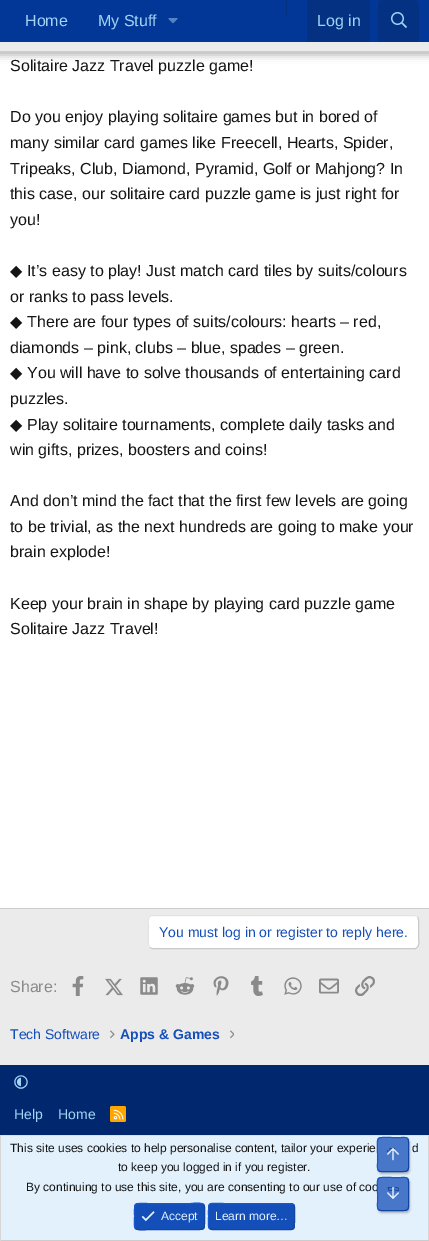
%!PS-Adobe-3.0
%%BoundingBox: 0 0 429 1241
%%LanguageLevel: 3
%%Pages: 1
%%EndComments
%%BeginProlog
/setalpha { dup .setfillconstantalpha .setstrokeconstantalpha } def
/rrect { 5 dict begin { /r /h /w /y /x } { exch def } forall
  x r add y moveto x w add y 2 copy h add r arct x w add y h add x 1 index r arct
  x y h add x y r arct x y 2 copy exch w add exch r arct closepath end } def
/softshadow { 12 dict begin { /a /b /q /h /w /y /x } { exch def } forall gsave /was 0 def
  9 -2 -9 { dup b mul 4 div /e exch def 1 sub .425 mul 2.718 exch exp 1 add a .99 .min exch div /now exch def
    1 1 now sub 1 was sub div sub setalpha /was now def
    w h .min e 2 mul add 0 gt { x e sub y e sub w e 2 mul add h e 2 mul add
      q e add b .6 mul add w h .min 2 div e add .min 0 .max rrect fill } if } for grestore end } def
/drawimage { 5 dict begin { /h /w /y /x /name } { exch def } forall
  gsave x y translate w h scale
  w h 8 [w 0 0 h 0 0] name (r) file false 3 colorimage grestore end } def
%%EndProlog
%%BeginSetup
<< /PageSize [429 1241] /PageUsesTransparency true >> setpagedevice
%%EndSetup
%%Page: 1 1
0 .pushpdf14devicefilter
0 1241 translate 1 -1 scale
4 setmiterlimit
0.922 setgray
0 0 429 1241 rectfill
1 setgray
0 52 429 856 rectfill
0 setgray
-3 -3 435 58 0 4 0.3 softshadow
0.008 0.212 0.592 setrgbcolor
0 0 429 42 rectfill
(images/1.raw) 168 18 10 6 drawimage
0.02 0.192 0.514 setrgbcolor
286 0 1 16 rectfill
307 0 63 42 rectfill
newpath 382 0 moveto 415 0 lineto 417 0 419 2 419 4 curveto 419 42 lineto 378 42 lineto 378 4 lineto 378 2 380 0 382 0 curveto closepath fill
(images/2.raw) 391 12 16 16 drawimage
0.922 setgray
0 42 429 9 rectfill
0.8 setgray
0 51 429 1 rectfill
0 908 429 1 rectfill
1 setgray
148 915 271 34 4 rrect fill
0.788 setgray
newpath 417.5 916.5 moveto 419.5 919 418.5 933 418.5 936.5 curveto 418.5 939 420.5 948.5 415 948.5 curveto 152 948.5 lineto 149.5 947.5 lineto stroke
0.89 setgray
newpath 149.5 947.5 moveto 147.5 945 148.5 931 148.5 927.5 curveto 148.5 925 146.5 915.5 152 915.5 curveto 415 915.5 lineto 417.5 916.5 lineto stroke
(images/3.raw) 72 976 12 20 drawimage
(images/4.raw) 105 978 18 18 drawimage
(images/5.raw) 140 977 18 18 drawimage
(images/6.raw) 175 977 20 18 drawimage
(images/7.raw) 213 976 16 20 drawimage
(images/8.raw) 251 976 12 20 drawimage
(images/9.raw) 284 977 18 18 drawimage
(images/10.raw) 319 978 20 16 drawimage
(images/11.raw) 355 976 20 20 drawimage
(images/12.raw) 110 1030 5 9 drawimage
(images/13.raw) 230 1030 4 9 drawimage
0.004 0.157 0.435 setrgbcolor
0 1065 429 70 rectfill
(images/14.raw) 14 1075 14 14 drawimage
1 0.647 0 setrgbcolor
110 1106 16 16 2 rrect fill
(images/15.raw) 113 1109 11 11 drawimage
0.89 0.945 0.992 setrgbcolor
1 1136 427 104 rectfill
0.878 setgray
0 1135 429 1 rectfill
gsave
newpath 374 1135 moveto 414 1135 lineto 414 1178 lineto 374 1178 lineto closepath 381 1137 moveto 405 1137 lineto 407 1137 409 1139 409 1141 curveto 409 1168 lineto 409 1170 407 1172 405 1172 curveto 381 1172 lineto 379 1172 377 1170 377 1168 curveto 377 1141 lineto 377 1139 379 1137 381 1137 curveto closepath eoclip newpath
0 setgray
378 1139 32 35 4 1 0.25 softshadow
grestore
0.75 setalpha
0.078 0.306 0.722 setrgbcolor
377 1137 32 35 4 rrect fill
1 setalpha
0.071 0.267 0.631 setrgbcolor
newpath 407.5 1138.5 moveto 409 1140 408.5 1143.5 408.5 1145.5 curveto 408.5 1154.5 lineto 408.5 1174 411.5 1171.5 393 1171.5 curveto 385 1171.5 lineto 383 1171.5 380 1172 378.5 1170.5 curveto stroke
0.09 0.341 0.812 setrgbcolor
newpath 378.5 1170.5 moveto 377 1169 377.5 1165.5 377.5 1163.5 curveto 377.5 1154.5 lineto 377.5 1135 374.5 1137.5 393 1137.5 curveto 401 1137.5 lineto 403 1137.5 406 1137 407.5 1138.5 curveto stroke
(images/16.raw) 387 1148 12 13 drawimage
gsave
newpath 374 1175 moveto 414 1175 lineto 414 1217 lineto 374 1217 lineto closepath 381 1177 moveto 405 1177 lineto 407 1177 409 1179 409 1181 curveto 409 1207 lineto 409 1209 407 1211 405 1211 curveto 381 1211 lineto 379 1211 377 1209 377 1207 curveto 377 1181 lineto 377 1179 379 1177 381 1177 curveto closepath eoclip newpath
0 setgray
378 1179 32 34 4 1 0.25 softshadow
grestore
0.839 setgray
428 1135 1 106 rectfill
0.8 setgray
0 1240 429 1 rectfill
0.839 setgray
0 1135 1 106 rectfill
0.078 0.306 0.722 setrgbcolor
134 1203 71 27 4 rrect fill
0.071 0.267 0.631 setrgbcolor
newpath 203.5 1204.5 moveto 205.5 1206.5 204.5 1214 204.5 1216.5 curveto 204.5 1231.5 206 1229.5 190.5 1229.5 curveto 148.5 1229.5 lineto 147.5 1229.5 138 1231 135.5 1228.5 curveto stroke
0.09 0.341 0.812 setrgbcolor
newpath 135.5 1228.5 moveto 133.5 1226.5 134.5 1219 134.5 1216.5 curveto 134.5 1201.5 133 1203.5 148.5 1203.5 curveto 190.5 1203.5 lineto 191.5 1203.5 201 1202 203.5 1204.5 curveto stroke
(images/18.raw) 141 1211 14 11 drawimage
0.078 0.306 0.722 setrgbcolor
208 1203 87 27 4 rrect fill
0.071 0.267 0.631 setrgbcolor
newpath 293.5 1204.5 moveto 295.5 1206.5 294.5 1214 294.5 1216.5 curveto 294.5 1232.5 296 1229.5 278 1229.5 curveto 212 1229.5 lineto 209.5 1228.5 lineto stroke
0.09 0.341 0.812 setrgbcolor
newpath 209.5 1228.5 moveto 207.5 1226.5 208.5 1219 208.5 1216.5 curveto 208.5 1200.5 207 1203.5 225 1203.5 curveto 291 1203.5 lineto 293.5 1204.5 lineto stroke
/LiberationSans-Regular [16 0 0 -16 0 0] selectfont
0.639 0.831 0.961 setrgbcolor
25 26 moveto (Home) show
98 26 moveto (My Stuff) show
317 26 moveto (Log in) show
0.078 setgray
10 71 moveto (Solitaire Jazz Travel puzzle game!) show
10 122 moveto (Do you enjoy playing solitaire games but in bored of) show
10 148 moveto (many similar card games like Freecell, Hearts, Spider,) show
10 174 moveto (Tripeaks, Club, Diamond, Pyramid, Golf or Mahjong? In) show
10 199 moveto (this case, our solitaire card puzzle game is just right for) show
10 225 moveto (you!) show
/DejaVuSans-Regular [16 0 0 -16 0 0] selectfont
10 276 moveto (◆) show
/LiberationSans-Regular [16 0 0 -16 0 0] selectfont
27 276 moveto (It’s easy to play! Just match card tiles by suits/colours) show
10 302 moveto (or ranks to pass levels.) show
/DejaVuSans-Regular [16 0 0 -16 0 0] selectfont
10 327 moveto (◆) show
/LiberationSans-Regular [16 0 0 -16 0 0] selectfont
27 327 moveto (There are four types of suits/colours: hearts – red,) show
10 353 moveto (diamonds – pink, clubs – blue, spades – green.) show
/DejaVuSans-Regular [16 0 0 -16 0 0] selectfont
10 378 moveto (◆) show
/LiberationSans-Regular [16 0 0 -16 0 0] selectfont
27 378 moveto (You will have to solve thousands of entertaining card) show
10 404 moveto (puzzles.) show
/DejaVuSans-Regular [16 0 0 -16 0 0] selectfont
10 430 moveto (◆) show
/LiberationSans-Regular [16 0 0 -16 0 0] selectfont
27 430 moveto (Play solitaire tournaments, complete daily tasks and) show
10 455 moveto (win gifts, prizes, boosters and coins!) show
10 506 moveto (And don’t mind the fact that the first few levels are going) show
10 532 moveto (to be trivial, as the next hundreds are going to make your) show
10 557 moveto (brain explode!) show
10 609 moveto (Keep your brain in shape by playing card puzzle game) show
10 634 moveto (Solitaire Jazz Travel!) show
/LiberationSans-Regular [14 0 0 -14 0 0] selectfont
0.078 0.306 0.722 setrgbcolor
159 937 moveto (You must log in or register to reply here.) show
/LiberationSans-Regular [16 0 0 -16 0 0] selectfont
0.541 setgray
10 992 moveto (Share:) show
/LiberationSans-Regular [14 0 0 -14 0 0] selectfont
0.078 0.306 0.722 setrgbcolor
10 1039 moveto (Tech Software) show
/LiberationSans-Bold [14 0 0 -14 0 0] selectfont
120 1039 moveto (Apps & Games) show
/LiberationSans-Regular [14 0 0 -14 0 0] selectfont
0.639 0.831 0.961 setrgbcolor
14 1119 moveto (Help) show
58 1119 moveto (Home) show
/LiberationSans-Regular [12 0 0 -12 0 0] selectfont
0.078 setgray
10 1152 moveto (This site uses cookies to help personalise content, tailor your experie) show
412 1152 moveto (d) show
118 1171 moveto (to keep you logged in if you register.) show
26 1191 moveto (By continuing to use this site, you are consenting to our use of coo) show
0.75 setalpha
0.078 0.306 0.722 setrgbcolor
377 1177 32 34 4 rrect fill
1 setalpha
0.071 0.267 0.631 setrgbcolor
newpath 407.5 1178.5 moveto 409 1180 408.5 1183.5 408.5 1185.5 curveto 408.5 1194 lineto 408.5 1213 411.5 1210.5 393 1210.5 curveto 385 1210.5 lineto 383 1210.5 380 1211 378.5 1209.5 curveto stroke
0.09 0.341 0.812 setrgbcolor
newpath 378.5 1209.5 moveto 377 1208 377.5 1204.5 377.5 1202.5 curveto 377.5 1194 lineto 377.5 1175 374.5 1177.5 393 1177.5 curveto 401 1177.5 lineto 403 1177.5 406 1177 407.5 1178.5 curveto stroke
(images/17.raw) 387 1187 12 12 drawimage
0.89 0.945 0.992 setrgbcolor
161 1220 moveto (Accept) show
215 1220 moveto (Learn more…) show
.poppdf14devicefilter showpage
%%EOF
